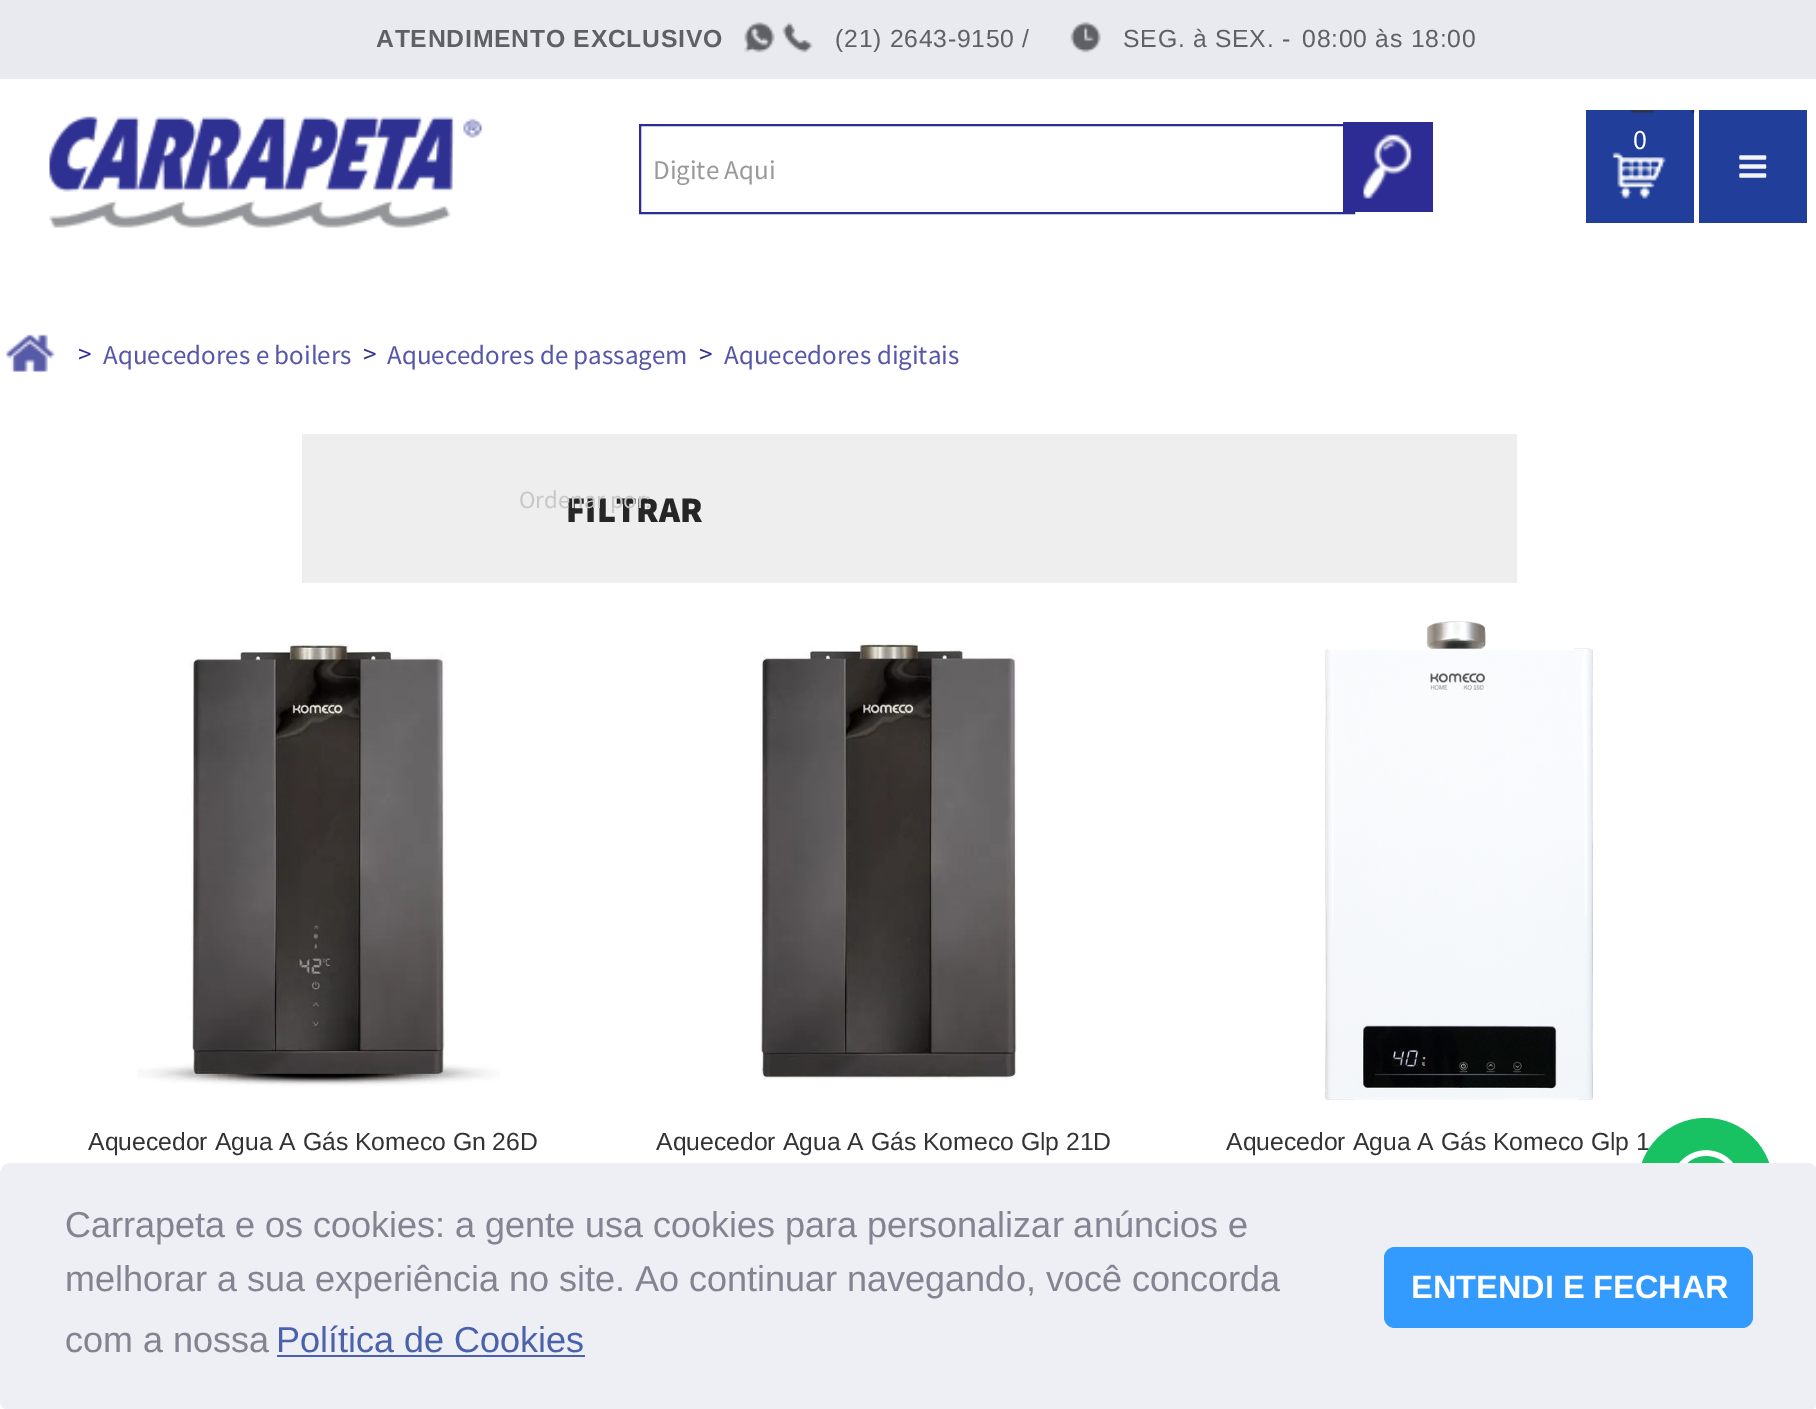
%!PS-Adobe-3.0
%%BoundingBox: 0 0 1816 1409
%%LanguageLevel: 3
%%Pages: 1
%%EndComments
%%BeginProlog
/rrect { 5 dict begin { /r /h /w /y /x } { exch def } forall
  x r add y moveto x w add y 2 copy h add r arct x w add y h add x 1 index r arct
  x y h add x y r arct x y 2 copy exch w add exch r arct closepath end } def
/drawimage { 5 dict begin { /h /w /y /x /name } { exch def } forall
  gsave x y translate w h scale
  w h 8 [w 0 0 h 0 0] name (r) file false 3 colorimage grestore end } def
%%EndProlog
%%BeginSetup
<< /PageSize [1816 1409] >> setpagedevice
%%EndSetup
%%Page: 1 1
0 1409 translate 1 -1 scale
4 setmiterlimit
1 setgray
0 0 1816 1409 rectfill
0.91 0.918 0.937 setrgbcolor
0 0 1816 79 rectfill
(images/1.raw) 744 22 31 31 drawimage
(images/2.raw) 782 22 31 31 drawimage
(images/3.raw) 1070 22 31 31 drawimage
(images/4.raw) 49 116 434 112 drawimage
0.129 0.247 0.604 setrgbcolor
1586 110 108 113 rectfill
(images/5.raw) 1612 110 83 89 drawimage
0.173 0.173 0.58 setrgbcolor
2 setlinewidth
640 125 714 88 rectstroke
1343 122 90 90 rectfill
(images/6.raw) 1363 134 49 65 drawimage
0.129 0.247 0.604 setrgbcolor
1699 110 108 113 rectfill
(images/7.raw) 1739 155 28 23 drawimage
(images/8.raw) 6 334 49 38 drawimage
(images/9.raw) 137 642 363 444 drawimage
(images/10.raw) 760 641 257 439 drawimage
(images/11.raw) 1325 621 268 479 drawimage
0.933 setgray
302 434 1215 149 rectfill
/LiberationSans-Bold [24.75 0 0 -24.75 0 0] selectfont
0.369 0.376 0.396 setrgbcolor
376 47 moveto 0.75 0 (ATENDIMENTO EXCLUSIVO) ashow
/LiberationSans-Regular [24.75 0 0 -24.75 0 0] selectfont
835 47 moveto 0.75 0 (\(21\) 2643-9150 /) ashow
1123 47 moveto 0.75 0 (SEG. à SEX. -) ashow
1302 47 moveto 0.75 0 (08:00 às 18:00) ashow
/SourceSansPro-Regular [28 0 0 -28 0 0] selectfont
1 setgray
1633 149 moveto (0) show
/SourceSansPro-Regular [27 0 0 -27 0 0] selectfont
0.6 setgray
653 179 moveto (Digite Aqui) show
0.173 0.173 0.58 setrgbcolor
78 363 moveto (>) show
0.337 0.337 0.663 setrgbcolor
103 364 moveto (Aquecedores e boilers) show
0.173 0.173 0.58 setrgbcolor
363 363 moveto (>) show
0.337 0.337 0.663 setrgbcolor
387 364 moveto (Aquecedores de passagem) show
0.173 0.173 0.58 setrgbcolor
699 363 moveto (>) show
0.337 0.337 0.663 setrgbcolor
724 364 moveto (Aquecedores digitais) show
/LiberationSans-Regular [24.75 0 0 -24.75 0 0] selectfont
0.2 setgray
88 1150 moveto (Aquecedor Agua A Gás Komeco Gn 26D) show
656 1150 moveto (Aquecedor Agua A Gás Komeco Glp 21D) show
1226 1150 moveto (Aquecedor Agua A Gás Komeco Glp 1) show
/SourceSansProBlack-Black [36 0 0 -36 0 0] selectfont
0.149 setgray
566 522 moveto (FILTRAR) show
/SourceSansPro-Regular [24.75 0 0 -24.75 0 0] selectfont
0.78 setgray
519 508 moveto (Ordenar por:) show
0.094 0.757 0.38 setrgbcolor
newpath 1705.5 1185.5 67.5 0 360 arc closepath fill
(images/12.raw) 1679 1150 54 13 drawimage
0.929 0.937 0.961 setrgbcolor
0 1163 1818 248 11 rrect fill
/LiberationSans-Regular [36 0 0 -36 0 0] selectfont
0.514 0.514 0.569 setrgbcolor
65 1237 moveto (Carrapeta e os cookies: a gente usa cookies para personalizar anúncios e) show
65 1291 moveto (melhorar a sua experiência no site. Ao continuar navegando, você concorda) show
65 1352 moveto (com a nossa) show
0.29 0.384 0.675 setrgbcolor
276 1352 moveto (Política de Cookies) show
277 1355 308 2 rectfill
0.2 0.604 0.996 setrgbcolor
1384 1247 369 81 11 rrect fill
/LiberationSans-Bold [32.5 0 0 -32.5 0 0] selectfont
1 setgray
1411 1298 moveto (ENTENDI E FECHAR) show
showpage
%%EOF
